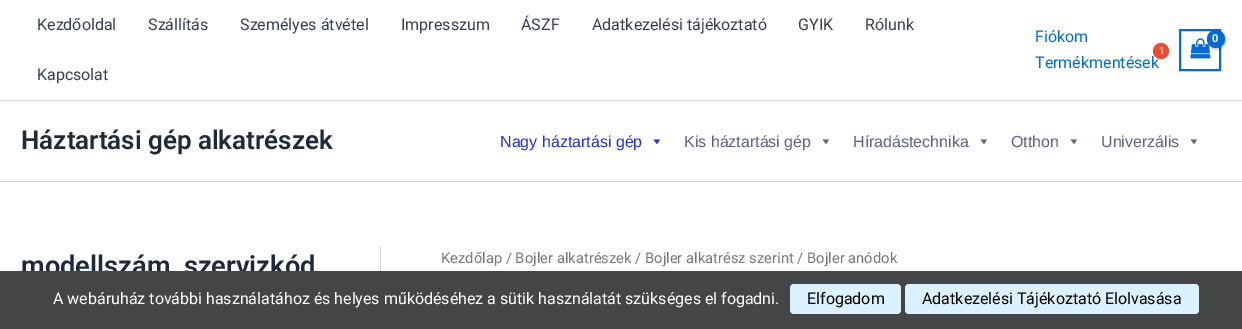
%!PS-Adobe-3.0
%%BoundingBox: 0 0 1242 329
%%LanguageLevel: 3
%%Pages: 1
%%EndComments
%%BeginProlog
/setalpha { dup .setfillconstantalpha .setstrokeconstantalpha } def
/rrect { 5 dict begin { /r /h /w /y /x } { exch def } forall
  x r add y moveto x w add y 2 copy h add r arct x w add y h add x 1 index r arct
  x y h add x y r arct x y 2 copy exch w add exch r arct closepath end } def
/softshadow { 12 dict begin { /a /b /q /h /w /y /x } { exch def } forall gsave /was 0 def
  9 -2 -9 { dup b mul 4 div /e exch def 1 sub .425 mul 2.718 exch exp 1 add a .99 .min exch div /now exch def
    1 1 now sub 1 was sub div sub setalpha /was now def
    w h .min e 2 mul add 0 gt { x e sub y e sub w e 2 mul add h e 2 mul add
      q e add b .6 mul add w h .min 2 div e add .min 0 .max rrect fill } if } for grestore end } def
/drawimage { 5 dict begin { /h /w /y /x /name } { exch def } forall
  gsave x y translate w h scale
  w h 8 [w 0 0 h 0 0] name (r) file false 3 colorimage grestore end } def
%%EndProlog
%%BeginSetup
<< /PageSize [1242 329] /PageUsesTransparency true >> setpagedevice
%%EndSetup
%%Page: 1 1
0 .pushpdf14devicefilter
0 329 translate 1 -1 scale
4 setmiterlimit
1 setgray
0 0 1242 329 rectfill
0.82 0.835 0.859 setrgbcolor
0 100 1242 1 rectfill
0.016 0.42 0.824 setrgbcolor
2 setlinewidth
1180 30 40 40 rectstroke
(images/1.raw) 1190 38 21 21 drawimage
0 setgray
1208 31 18 18 9 1.5 0.3 softshadow
0.016 0.42 0.824 setrgbcolor
newpath 1216 39 9 0 360 arc closepath fill
0.82 0.835 0.859 setrgbcolor
0 181 1242 1 rectfill
0.133 0.192 0.831 setrgbcolor
newpath 660 139.5 moveto 657 144 lineto 653.5 139.5 lineto closepath fill
0.369 0.38 0.518 setrgbcolor
newpath 829 139.5 moveto 826 144 lineto 822.5 139.5 lineto closepath fill
newpath 987 139.5 moveto 984 144 lineto 980.5 139.5 lineto closepath fill
newpath 1077 139.5 moveto 1074 144 lineto 1070.5 139.5 lineto closepath fill
newpath 1197 139.5 moveto 1194 144 lineto 1190.5 139.5 lineto closepath fill
0.82 0.835 0.859 setrgbcolor
380 246 1 25 rectfill
/Roboto-Regular [16 0 0 -16 0 0] selectfont
0.2 0.255 0.333 setrgbcolor
37 30 moveto (Kezdőoldal) show
148 30 moveto (Szállítás) show
240 30 moveto (Személyes átvétel) show
401 30 moveto (Impresszum) show
521 30 moveto (ÁSZF) show
592 30 moveto (Adatkezelési tájékoztató) show
798 30 moveto (GYIK) show
865 30 moveto (Rólunk) show
37 80 moveto (Kapcsolat) show
0.016 0.42 0.824 setrgbcolor
1035 42 moveto (Fiókom) show
1035 68 moveto (Termékmentések) show
0.914 0.294 0.208 setrgbcolor
newpath 1161 51 8 0 360 arc closepath fill
/Roboto-Regular [10 0 0 -10 0 0] selectfont
1 setgray
1159 54 moveto (1) show
/Roboto-Bold [11 0 0 -11 0 0] selectfont
1212 42 moveto (0) show
/Roboto-SemiBold [26 0 0 -26 0 0] selectfont
0.118 0.161 0.231 setrgbcolor
21 149 moveto (Háztartási gép alkatrészek) show
/LiberationSans-Regular [16 0 0 -16 0 0] selectfont
0.133 0.192 0.831 setrgbcolor
500 147 moveto (Nagy háztartási gép) show
0.369 0.38 0.518 setrgbcolor
684 147 moveto (Kis háztartási gép) show
853 147 moveto (Híradástechnika) show
1011 147 moveto (Otthon) show
1101 147 moveto (Univerzális) show
/Roboto-SemiBold [27.25 0 0 -27.25 0 0] selectfont
0.118 0.161 0.231 setrgbcolor
21 275 moveto (modellszám, szervizkód) show
/Roboto-Regular [14.75 0 0 -14.75 0 0] selectfont
0.467 setgray
441 263 moveto (Kezdőlap / Bojler alkatrészek / Bojler alkatrész szerint / Bojler anódok) show
0.267 0.271 0.275 setrgbcolor
0 271 1242 58 rectfill
/Roboto-Regular [16 0 0 -16 0 0] selectfont
1 setgray
53 304 moveto (A webáruház további használatához és helyes működéséhez a sütik használatát szükséges el fogadni.) show
0.863 0.945 1 setrgbcolor
790 284 111 30 4 rrect fill
0 setgray
807 304 moveto (Elfogadom) show
0.863 0.945 1 setrgbcolor
905 284 294 30 4 rrect fill
0 setgray
922 304 moveto (Adatkezelési Tájékoztató Elolvasása) show
.poppdf14devicefilter showpage
%%EOF
